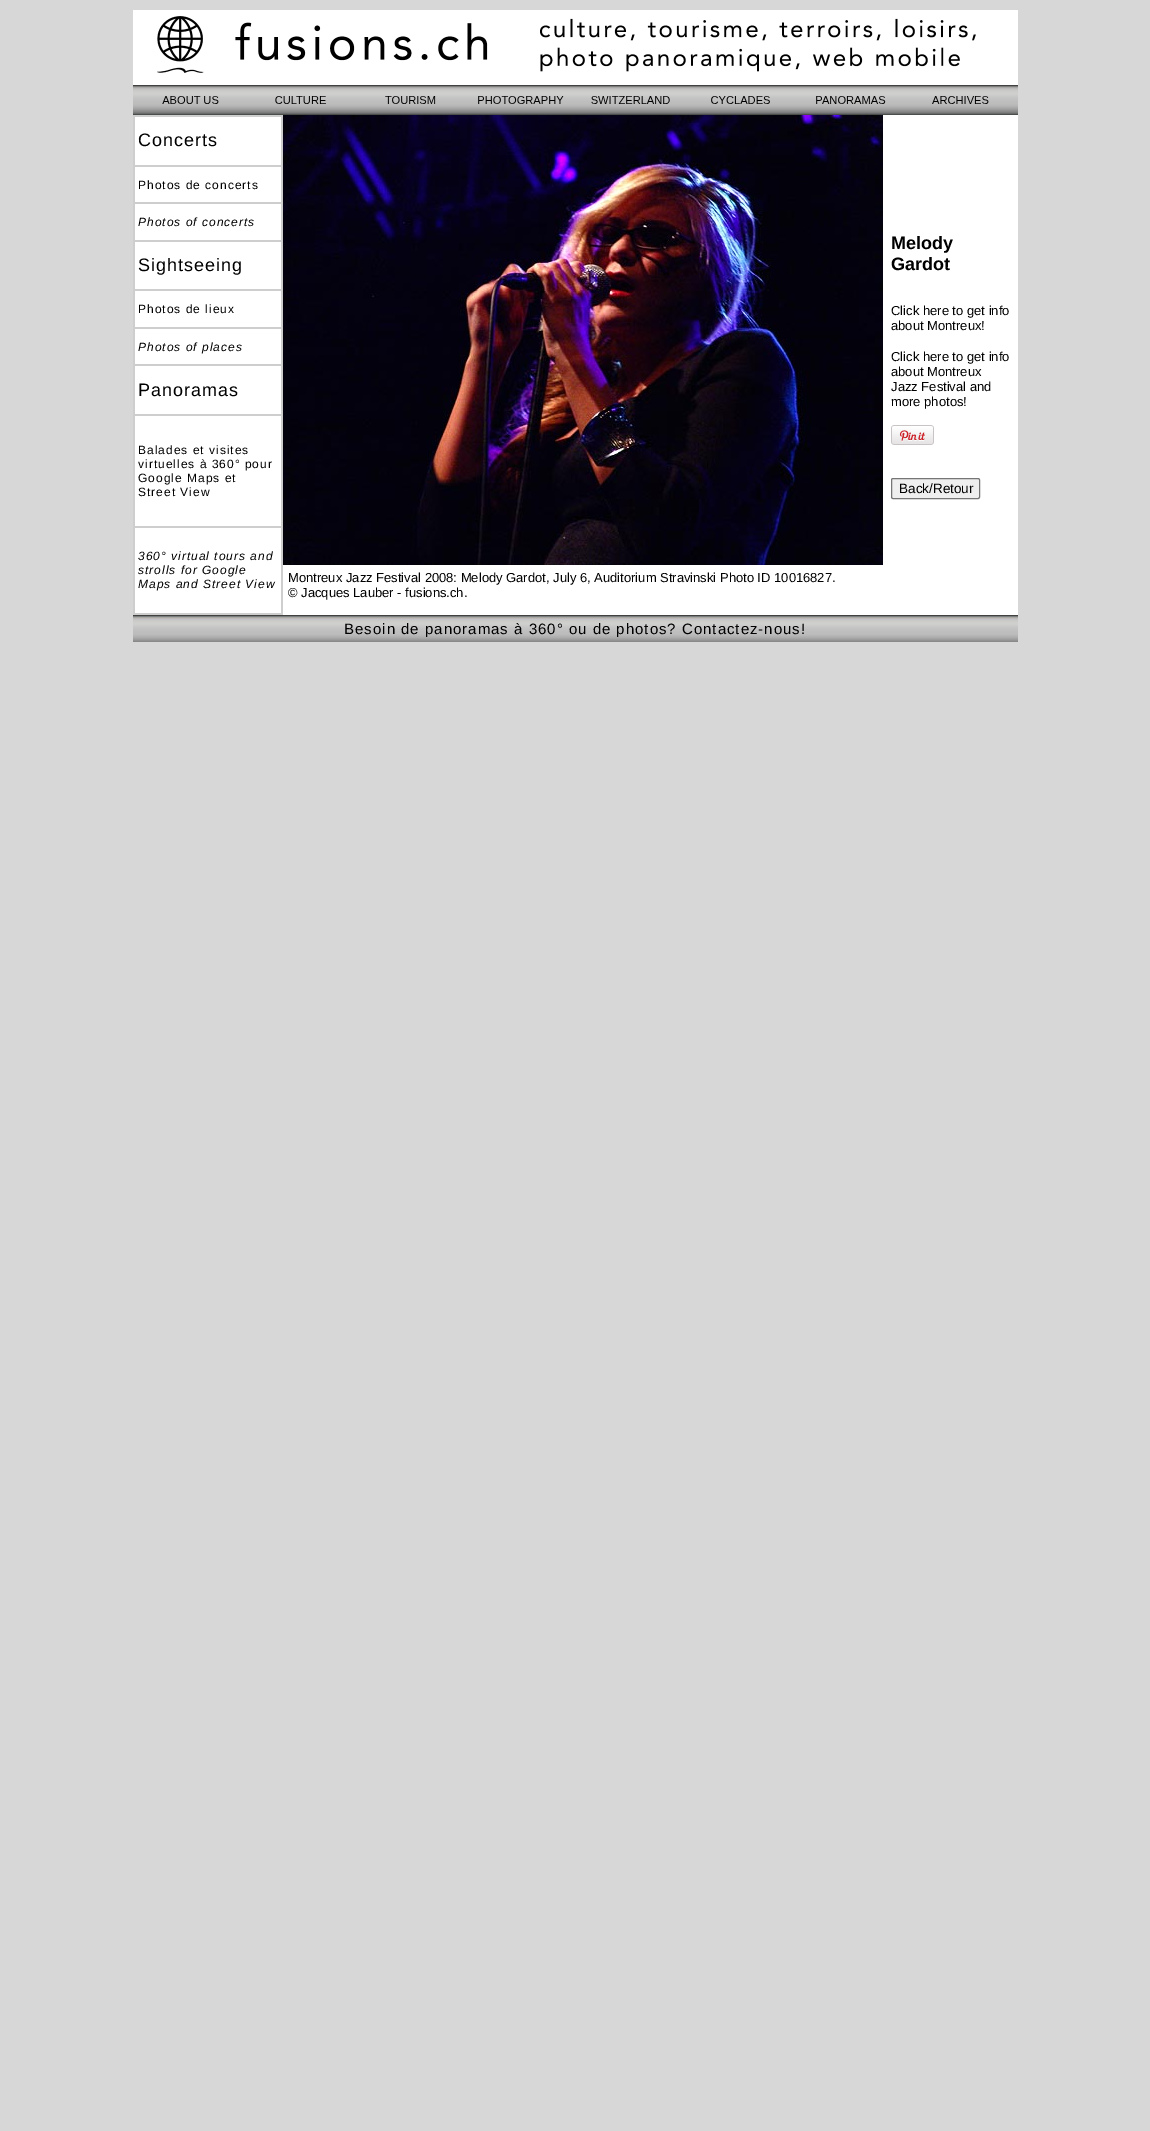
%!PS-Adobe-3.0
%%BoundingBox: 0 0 1150 2131
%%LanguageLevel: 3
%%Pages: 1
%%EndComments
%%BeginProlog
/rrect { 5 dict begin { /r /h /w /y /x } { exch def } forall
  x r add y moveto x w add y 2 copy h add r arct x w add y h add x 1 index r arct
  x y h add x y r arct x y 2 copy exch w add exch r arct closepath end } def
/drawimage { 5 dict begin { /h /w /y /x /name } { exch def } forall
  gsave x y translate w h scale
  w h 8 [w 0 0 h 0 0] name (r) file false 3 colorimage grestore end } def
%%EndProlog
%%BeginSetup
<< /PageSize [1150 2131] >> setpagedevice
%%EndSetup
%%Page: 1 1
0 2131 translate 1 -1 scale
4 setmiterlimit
0.843 setgray
0 0 1150 2131 rectfill
1 setgray
133 10 885 605 rectfill
(images/1.raw) 157 16 819 57 drawimage
(images/2.raw) 133 85 885 30 drawimage
0.808 setgray
133 115 150 500 rectfill
1 setgray
135 117 146 48 rectfill
135 167 146 35 rectfill
135 204 146 36 rectfill
135 242 146 47 rectfill
135 291 146 36 rectfill
135 329 146 35 rectfill
135 366 146 48 rectfill
135 416 146 110 rectfill
135 528 146 85 rectfill
(images/3.raw) 891 425 43 20 drawimage
0.937 setgray
891.5 478.5 88 20 1.5 rrect gsave fill grestore
0.463 setgray
stroke
(images/4.raw) 283 115 600 450 drawimage
(images/5.raw) 133 615 885 27 drawimage
/LiberationSans-Regular [18 0 0 -18 0 0] selectfont
0 setgray
138 146 moveto 1 0 (Concerts) ashow
/LiberationSans-Regular [12 0 0 -12 0 0] selectfont
138 189 moveto 1 0 (Photos de concerts) ashow
/LiberationSans-Italic [12 0 0 -12 0 0] selectfont
138 226 moveto 1 0 (Photos of concerts) ashow
/LiberationSans-Regular [18 0 0 -18 0 0] selectfont
138 271 moveto 1 0 (Sightseeing) ashow
/LiberationSans-Regular [12 0 0 -12 0 0] selectfont
138 313 moveto 1 0 (Photos de lieux) ashow
/LiberationSans-Italic [12 0 0 -12 0 0] selectfont
138 351 moveto 1 0 (Photos of places) ashow
/LiberationSans-Regular [18 0 0 -18 0 0] selectfont
138 396 moveto 1 0 (Panoramas) ashow
/LiberationSans-Regular [12 0 0 -12 0 0] selectfont
138 454 moveto 1 0 (Balades et visites) ashow
138 468 moveto 1 0 (virtuelles à 360° pour) ashow
138 482 moveto 1 0 (Google Maps et) ashow
138 496 moveto 1 0 (Street View) ashow
/LiberationSans-Italic [12 0 0 -12 0 0] selectfont
138 560 moveto 1 0 (360° virtual tours and) ashow
138 574 moveto 1 0 (strolls for Google) ashow
138 588 moveto 1 0 (Maps and Street View) ashow
/LiberationSans-Bold [18 0 0 -18 0 0] selectfont
891 249 moveto (Melody) show
891 270 moveto (Gardot) show
/LiberationSans-Regular [13 0 0 -13 0 0] selectfont
891 315 moveto (Click here to get info) show
891 330 moveto (about Montreux!) show
891 361 moveto (Click here to get info) show
891 376 moveto (about Montreux) show
891 391 moveto (Jazz Festival and) show
891 406 moveto (more photos!) show
/LiberationSans-Regular [13.5 0 0 -13.5 0 0] selectfont
899 493 moveto (Back/Retour) show
/LiberationSans-Regular [13 0 0 -13 0 0] selectfont
288 582 moveto (Montreux Jazz Festival 2008: Melody Gardot, July 6, Auditorium Stravinski Photo ID 10016827.) show
288 597 moveto (© Jacques Lauber - fusions.ch.) show
/LiberationSans-Regular [15 0 0 -15 0 0] selectfont
344 634 moveto 1 0 (Besoin de panoramas à 360° ou de photos? Contactez-nous!) ashow
showpage
%%EOF
